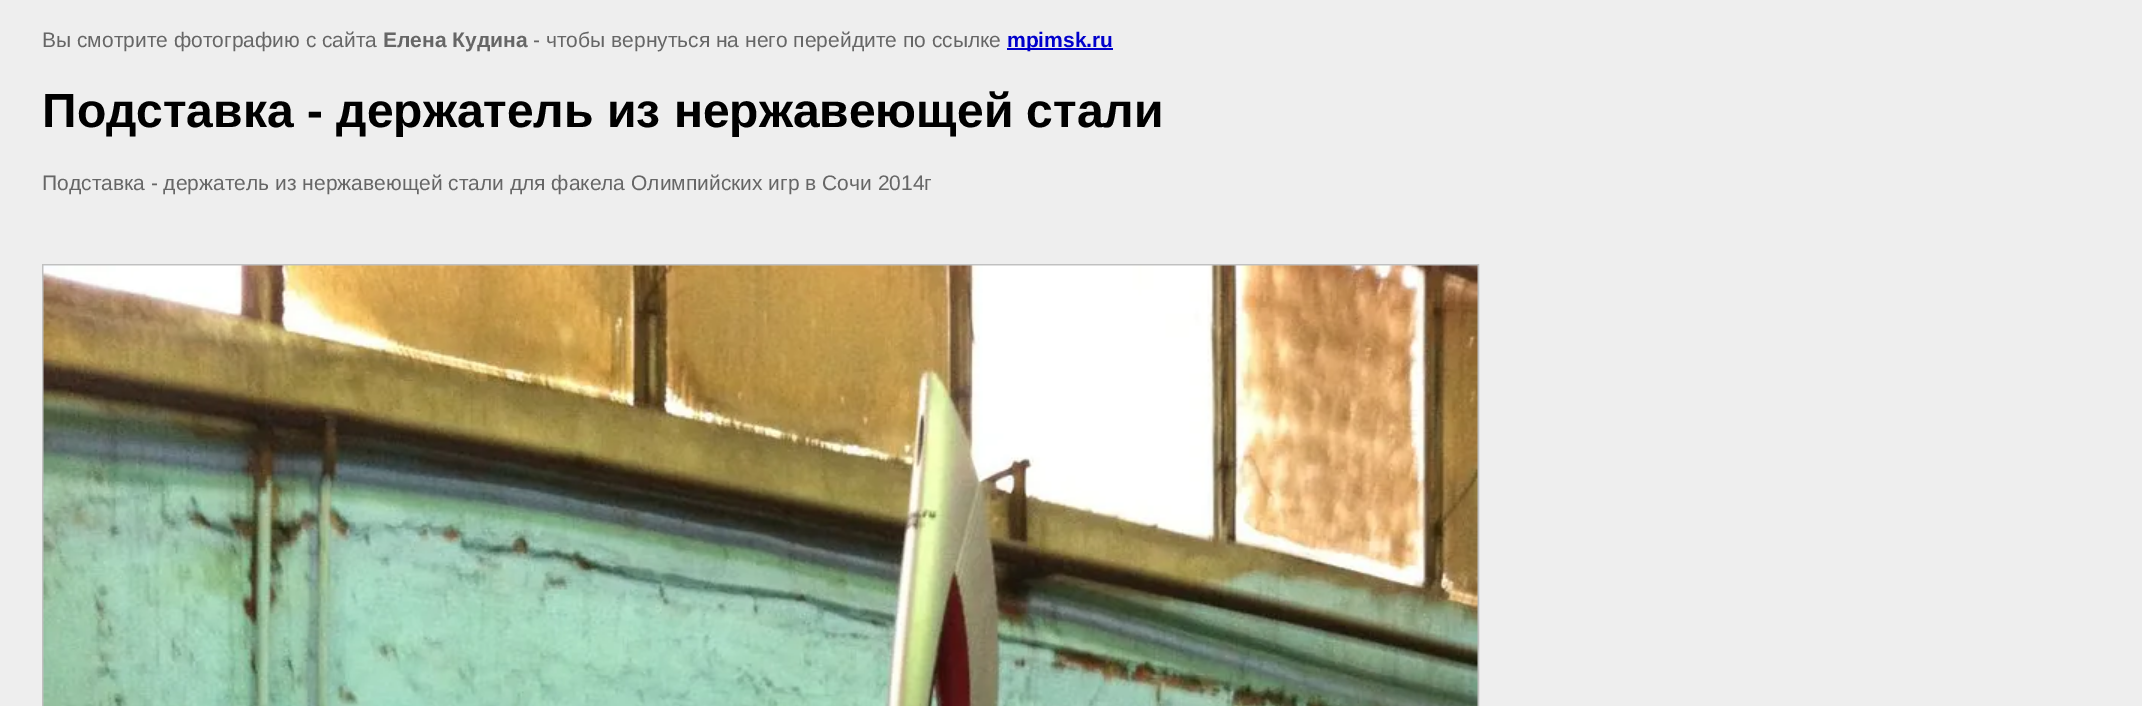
%!PS-Adobe-3.0
%%BoundingBox: 0 0 2142 706
%%LanguageLevel: 3
%%Pages: 1
%%EndComments
%%BeginProlog
/drawimage { 5 dict begin { /h /w /y /x /name } { exch def } forall
  gsave x y translate w h scale
  w h 8 [w 0 0 h 0 0] name (r) file false 3 colorimage grestore end } def
%%EndProlog
%%BeginSetup
<< /PageSize [2142 706] >> setpagedevice
%%EndSetup
%%Page: 1 1
0 706 translate 1 -1 scale
4 setmiterlimit
0.933 setgray
0 0 2142 706 rectfill
0 0 0.8 setrgbcolor
1007 48 106 2 rectfill
0.753 setgray
2 setlinewidth
43 265 1435 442 rectstroke
(images/1.raw) 43 265 1435 441 drawimage
/LiberationSans-Regular [21 0 0 -21 0 0] selectfont
0.4 setgray
42 47 moveto (Вы смотрите фотографию с сайта) show
/LiberationSans-Bold [21 0 0 -21 0 0] selectfont
383 47 moveto (Елена Кудина) show
/LiberationSans-Regular [21 0 0 -21 0 0] selectfont
533 47 moveto (- чтобы вернуться на него перейдите по ссылке) show
/LiberationSans-Bold [21 0 0 -21 0 0] selectfont
0 0 0.8 setrgbcolor
1007 47 moveto (mpimsk.ru) show
/LiberationSans-Bold [48 0 0 -48 0 0] selectfont
0 setgray
42 127 moveto (Подставка - держатель из нержавеющей стали) show
/LiberationSans-Regular [21 0 0 -21 0 0] selectfont
0.4 setgray
42 190 moveto (Подставка - держатель из нержавеющей стали для факела Олимпийских игр в Сочи 2014г) show
showpage
%%EOF
